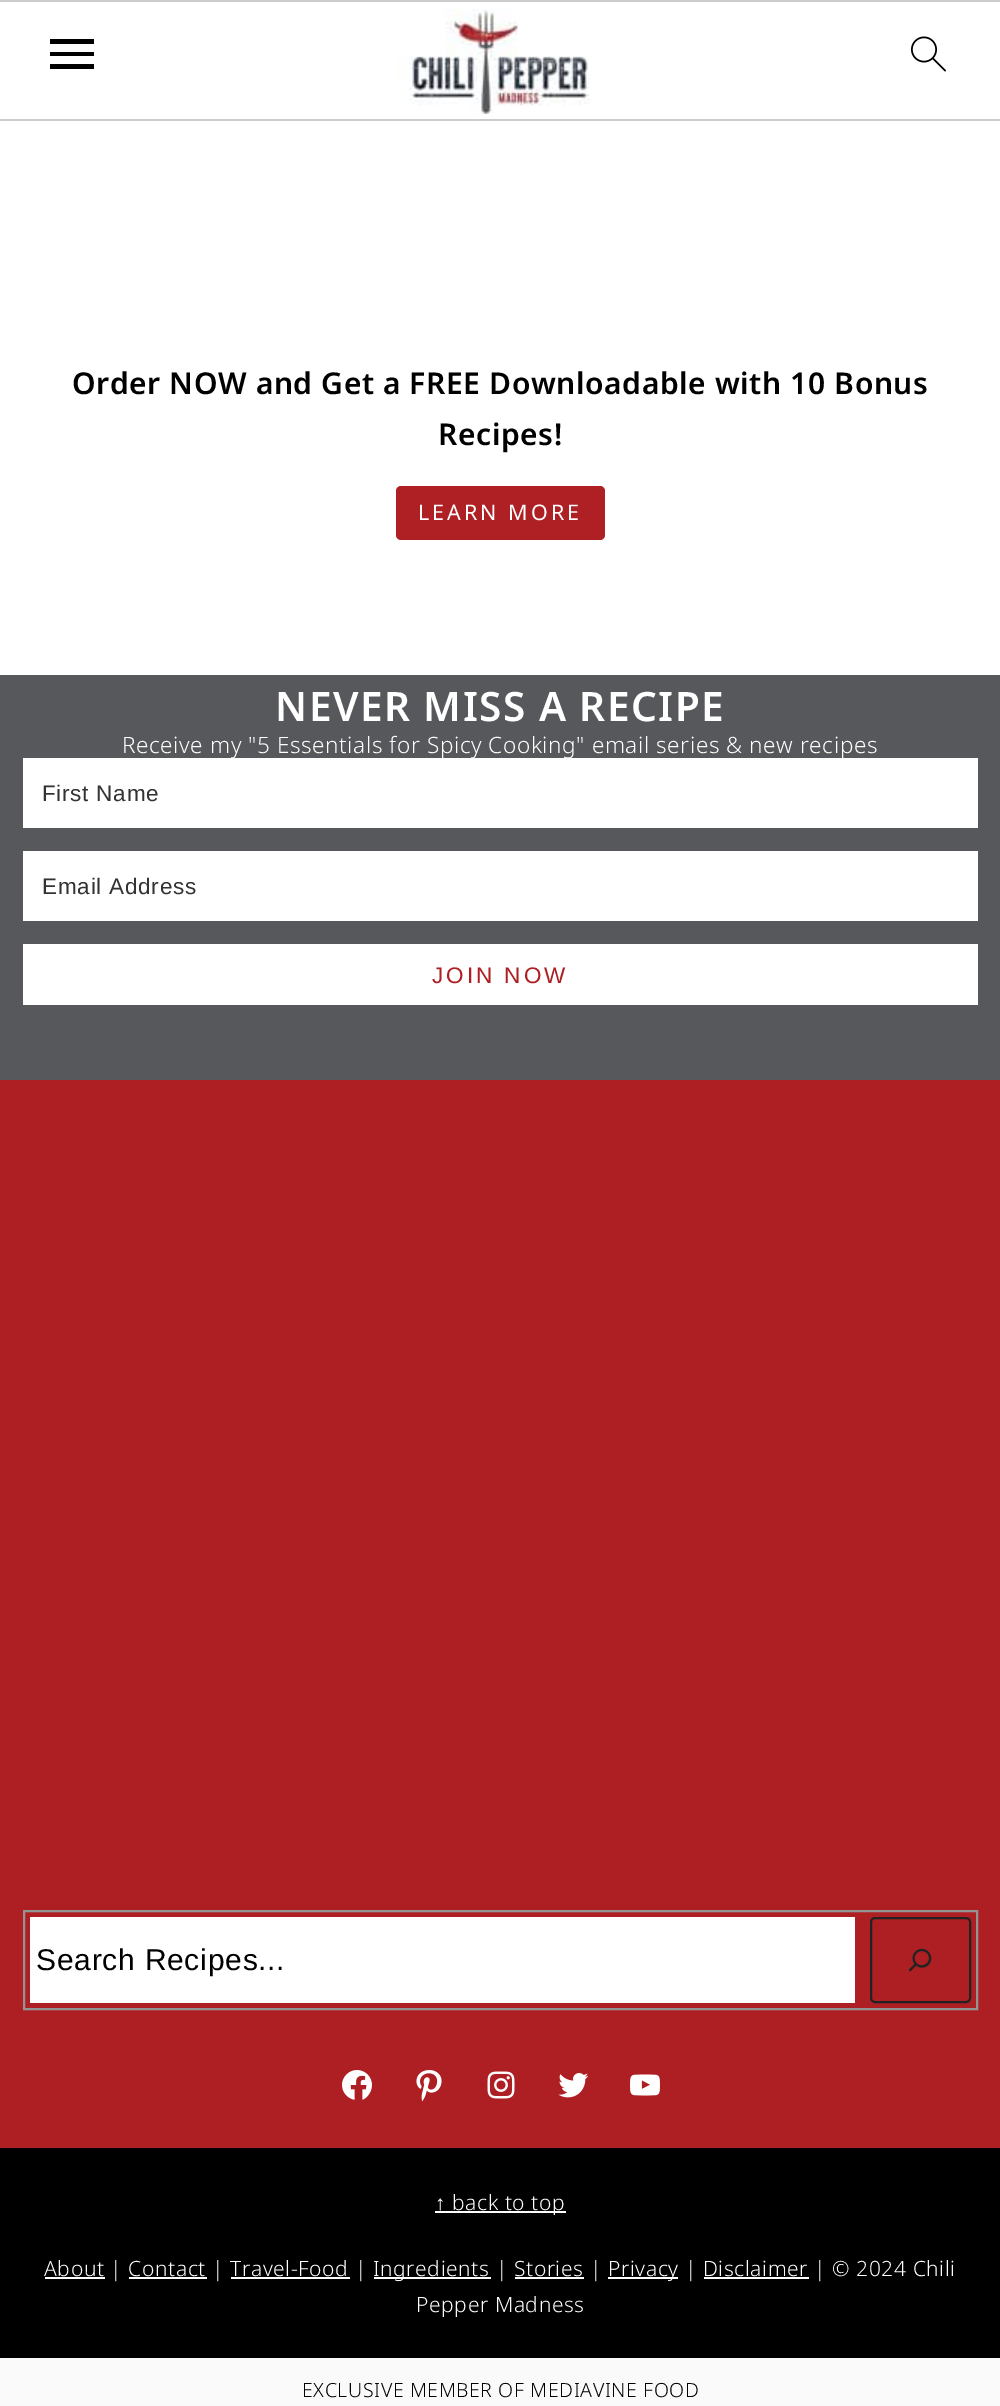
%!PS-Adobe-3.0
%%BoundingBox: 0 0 1000 2406
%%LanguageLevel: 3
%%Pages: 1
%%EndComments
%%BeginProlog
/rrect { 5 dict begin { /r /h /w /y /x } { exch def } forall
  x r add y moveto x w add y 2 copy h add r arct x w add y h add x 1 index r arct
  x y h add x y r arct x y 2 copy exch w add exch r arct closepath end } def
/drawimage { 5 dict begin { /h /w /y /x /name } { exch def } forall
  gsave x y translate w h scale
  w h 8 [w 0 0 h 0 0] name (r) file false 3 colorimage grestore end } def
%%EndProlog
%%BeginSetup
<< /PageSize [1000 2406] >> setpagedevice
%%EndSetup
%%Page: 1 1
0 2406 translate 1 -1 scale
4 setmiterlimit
1 setgray
0 0 1000 2406 rectfill
0.8 setgray
0 0 1000 2 rectfill
0 119 1000 2 rectfill
0 setgray
newpath 50 69 moveto 94 69 lineto 94 64 lineto 50 64 lineto closepath 50 56 moveto 94 56 lineto 94 52 lineto 50 52 lineto closepath 50 39 moveto 50 44 lineto 94 44 lineto 94 39 lineto closepath fill
(images/1.raw) 398 9 192 105 drawimage
(images/2.raw) 910 36 36 36 drawimage
0.682 0.125 0.141 setrgbcolor
396 486 209 54 5 rrect fill
0.98 setgray
0 2358 1000 48 rectfill
0.341 0.345 0.357 setrgbcolor
0 675 1000 405 rectfill
1 setgray
23 758 955 70 rectfill
23 851 955 70 rectfill
23 944 955 61 rectfill
0.682 0.122 0.141 setrgbcolor
0 1080 1000 1068 rectfill
0.58 setgray
2 setlinewidth
24 1911 953 98 rectstroke
1 setgray
30 1917 825 86 rectfill
0.133 setgray
871 1918 99 84 4 rrect stroke
(images/3.raw) 908 1948 24 24 drawimage
(images/4.raw) 342 2070 30 30 drawimage
(images/5.raw) 416 2070 26 32 drawimage
(images/6.raw) 487 2071 28 28 drawimage
(images/7.raw) 558 2073 31 25 drawimage
(images/8.raw) 630 2074 30 22 drawimage
0 setgray
0 2148 1000 210 rectfill
1 setgray
435 2211 131 2 rectfill
45 2277 60 2 rectfill
374 2277 117 2 rectfill
608 2277 70 2 rectfill
129 2277 78 2 rectfill
231 2277 119 2 rectfill
515 2277 69 2 rectfill
704 2277 105 2 rectfill
/NotoSans-SemiBold [30 0 0 -30 0 0] selectfont
0 setgray
72 394 moveto 0.6 0 (Order NOW and Get a FREE Downloadable with 10 Bonus) ashow
438 445 moveto 0.6 0 (Recipes!) ashow
/NotoSans-Regular [21.5 0 0 -21.5 0 0] selectfont
1 setgray
418 520 moveto 3 0 (LEARN MORE) ashow
/NotoSans-SemiBold [40.5 0 0 -40.5 0 0] selectfont
275 721 moveto 1.5 0 (NEVER MISS A RECIPE) ashow
/NotoSans-Light [22.5 0 0 -22.5 0 0] selectfont
122 753 moveto 0.6 0 (Receive my "5 Essentials for Spicy Cooking" email series & new recipes) ashow
/LiberationSans-Regular [22.5 0 0 -22.5 0 0] selectfont
0.2 setgray
42 801 moveto 0.75 0 (First Name) ashow
42 894 moveto 0.75 0 (Email Address) ashow
0.682 0.122 0.141 setrgbcolor
432 983 moveto 3 0 (JOIN NOW) ashow
/LiberationSans-Regular [30 0 0 -30 0 0] selectfont
0 setgray
36 1970 moveto 0.75 0 (Search Recipes...) ashow
/LiberationSans-Regular [21 0 0 -21 0 0] selectfont
1 setgray
435 2210 moveto 0.6 0 (↑) ashow
/NotoSans-Light [21 0 0 -21 0 0] selectfont
452 2210 moveto 0.6 0 (back to top) ashow
44 2276 moveto 0.6 0 (About | Contact | Travel-Food |) ashow
373 2276 moveto 0.6 0 (Ingredients | Stories |) ashow
608 2276 moveto 0.6 0 (Privacy | Disclaimer | © 2024 Chili) ashow
416 2312 moveto 0.6 0 (Pepper Madness) ashow
/NotoSans-Light [19.5 0 0 -19.5 0 0] selectfont
0 setgray
302 2397 moveto 0.6 0 (EXCLUSIVE MEMBER OF MEDIAVINE FOOD) ashow
showpage
%%EOF
